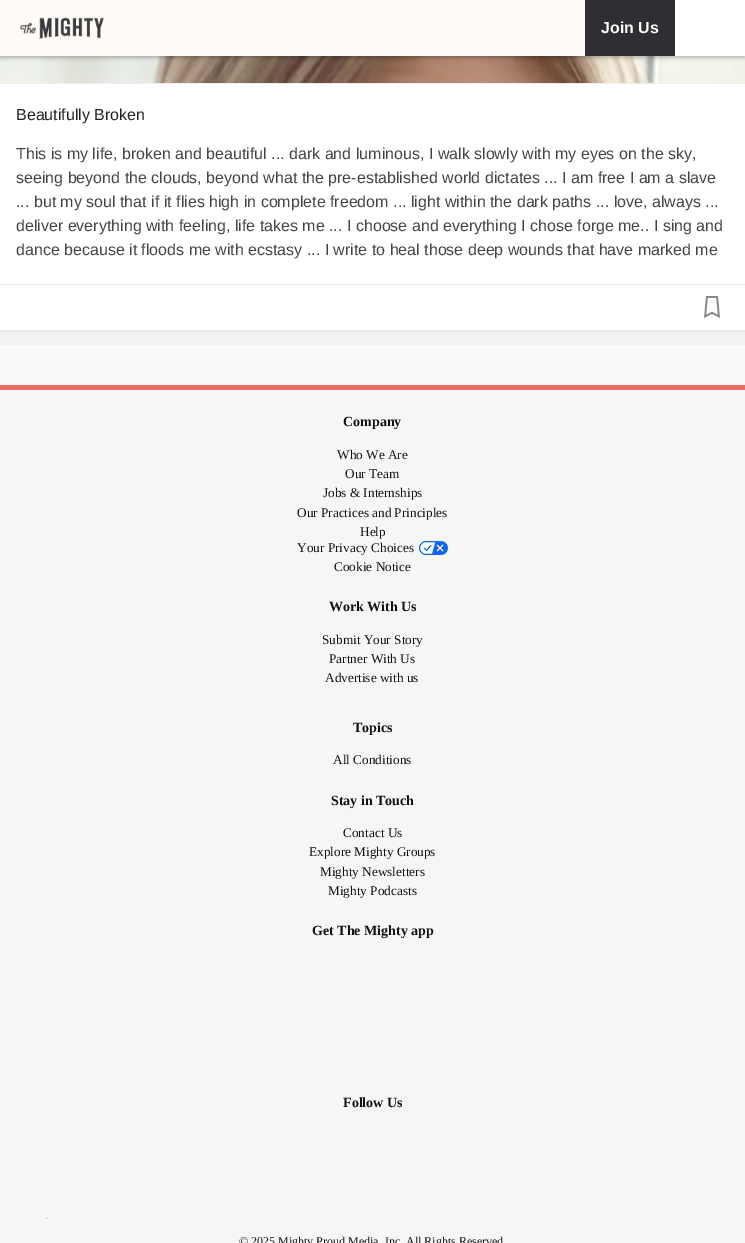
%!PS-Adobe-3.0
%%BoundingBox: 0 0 745 1243
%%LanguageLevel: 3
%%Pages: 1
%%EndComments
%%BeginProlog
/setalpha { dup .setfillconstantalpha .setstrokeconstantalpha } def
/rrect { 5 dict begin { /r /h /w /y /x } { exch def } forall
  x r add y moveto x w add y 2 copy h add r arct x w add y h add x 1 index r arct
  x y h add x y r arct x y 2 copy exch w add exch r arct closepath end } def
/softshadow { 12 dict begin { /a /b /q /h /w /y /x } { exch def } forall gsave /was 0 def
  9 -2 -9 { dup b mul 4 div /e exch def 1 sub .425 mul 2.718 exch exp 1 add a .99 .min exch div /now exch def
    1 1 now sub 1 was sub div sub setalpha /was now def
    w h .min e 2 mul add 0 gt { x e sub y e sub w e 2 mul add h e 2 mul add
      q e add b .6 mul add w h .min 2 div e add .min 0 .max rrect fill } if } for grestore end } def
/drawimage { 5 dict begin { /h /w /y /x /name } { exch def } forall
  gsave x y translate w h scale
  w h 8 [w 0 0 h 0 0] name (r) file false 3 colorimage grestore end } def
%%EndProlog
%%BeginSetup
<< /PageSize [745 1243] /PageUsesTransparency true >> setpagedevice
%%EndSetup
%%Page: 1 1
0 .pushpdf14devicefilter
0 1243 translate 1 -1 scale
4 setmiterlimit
0.976 setgray
0 0 745 1243 rectfill
0.949 setgray
0 330 745 15 rectfill
0 setgray
0 -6 745 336 0 2 0.08 softshadow
(images/2.raw) 0 56 745 27 drawimage
0 2 745 56 0 2 0.25 softshadow
1 0.988 0.973 setrgbcolor
0 0 745 56 rectfill
(images/1.raw) 20 17 84 22 drawimage
0.184 0.184 0.2 setrgbcolor
585 0 90 56 rectfill
1 setgray
675 1 70 54 rectfill
0 84 745 246 rectfill
0.933 setgray
0 83 745 1 rectfill
0.906 setgray
0 284 745 1 rectfill
(images/3.raw) 704 296 16 22 drawimage
0.965 setgray
0 390 745 853 rectfill
0.859 setgray
46 1217 2 2 rectfill
0.937 0.42 0.396 setrgbcolor
0 385 745 5 rectfill
(images/4.raw) 419 541 29 14 drawimage
/LiberationSans-Bold [16 0 0 -16 0 0] selectfont
1 0.988 0.973 setrgbcolor
601 33 moveto (Join Us) show
/LiberationSans-Regular [16 0 0 -16 0 0] selectfont
0.133 setgray
16 120 moveto (Beautifully Broken) show
0.267 setgray
16 159 moveto (This is my life, broken and beautiful ... dark and luminous, I walk slowly with my eyes on the sky,) show
16 183 moveto (seeing beyond the clouds, beyond what the pre-established world dictates ... I am free I am a slave) show
16 207 moveto (... but my soul that if it flies high in complete freedom ... light within the dark paths ... love, always ...) show
16 231 moveto (deliver everything with feeling, life takes me ... I choose and everything I chose forge me.. I sing and) show
16 255 moveto (dance because it floods me with ecstasy ... I write to heal those deep wounds that have marked me) show
/LiberationSerif-Bold [14 0 0 -14 0 0] selectfont
0.067 setgray
343 426 moveto (Company) show
/LiberationSerif-Regular [13.25 0 0 -13.25 0 0] selectfont
337 459 moveto (Who We Are) show
345 478 moveto (Our Team) show
323 497 moveto (Jobs & Internships) show
297 517 moveto (Our Practices and Principles) show
360 536 moveto (Help) show
297 552 moveto (Your Privacy Choices) show
334 571 moveto (Cookie Notice) show
/LiberationSerif-Bold [14 0 0 -14 0 0] selectfont
329 611 moveto (Work With Us) show
/LiberationSerif-Regular [13.25 0 0 -13.25 0 0] selectfont
322 644 moveto (Submit Your Story) show
329 663 moveto (Partner With Us) show
325 682 moveto (Advertise with us) show
/LiberationSerif-Bold [14 0 0 -14 0 0] selectfont
353 732 moveto (Topics) show
/LiberationSerif-Regular [13.25 0 0 -13.25 0 0] selectfont
333 764 moveto (All Conditions) show
/LiberationSerif-Bold [14 0 0 -14 0 0] selectfont
331 805 moveto (Stay in Touch) show
/LiberationSerif-Regular [13.25 0 0 -13.25 0 0] selectfont
343 837 moveto (Contact Us) show
309 856 moveto (Explore Mighty Groups) show
320 876 moveto (Mighty Newsletters) show
328 895 moveto (Mighty Podcasts) show
/LiberationSerif-Bold [14 0 0 -14 0 0] selectfont
312 935 moveto (Get The Mighty app) show
343 1107 moveto (Follow Us) show
/LiberationSerif-Regular [12 0 0 -12 0 0] selectfont
239 1245 moveto (© 2025 Mighty Proud Media, Inc. All Rights Reserved) show
.poppdf14devicefilter showpage
%%EOF
